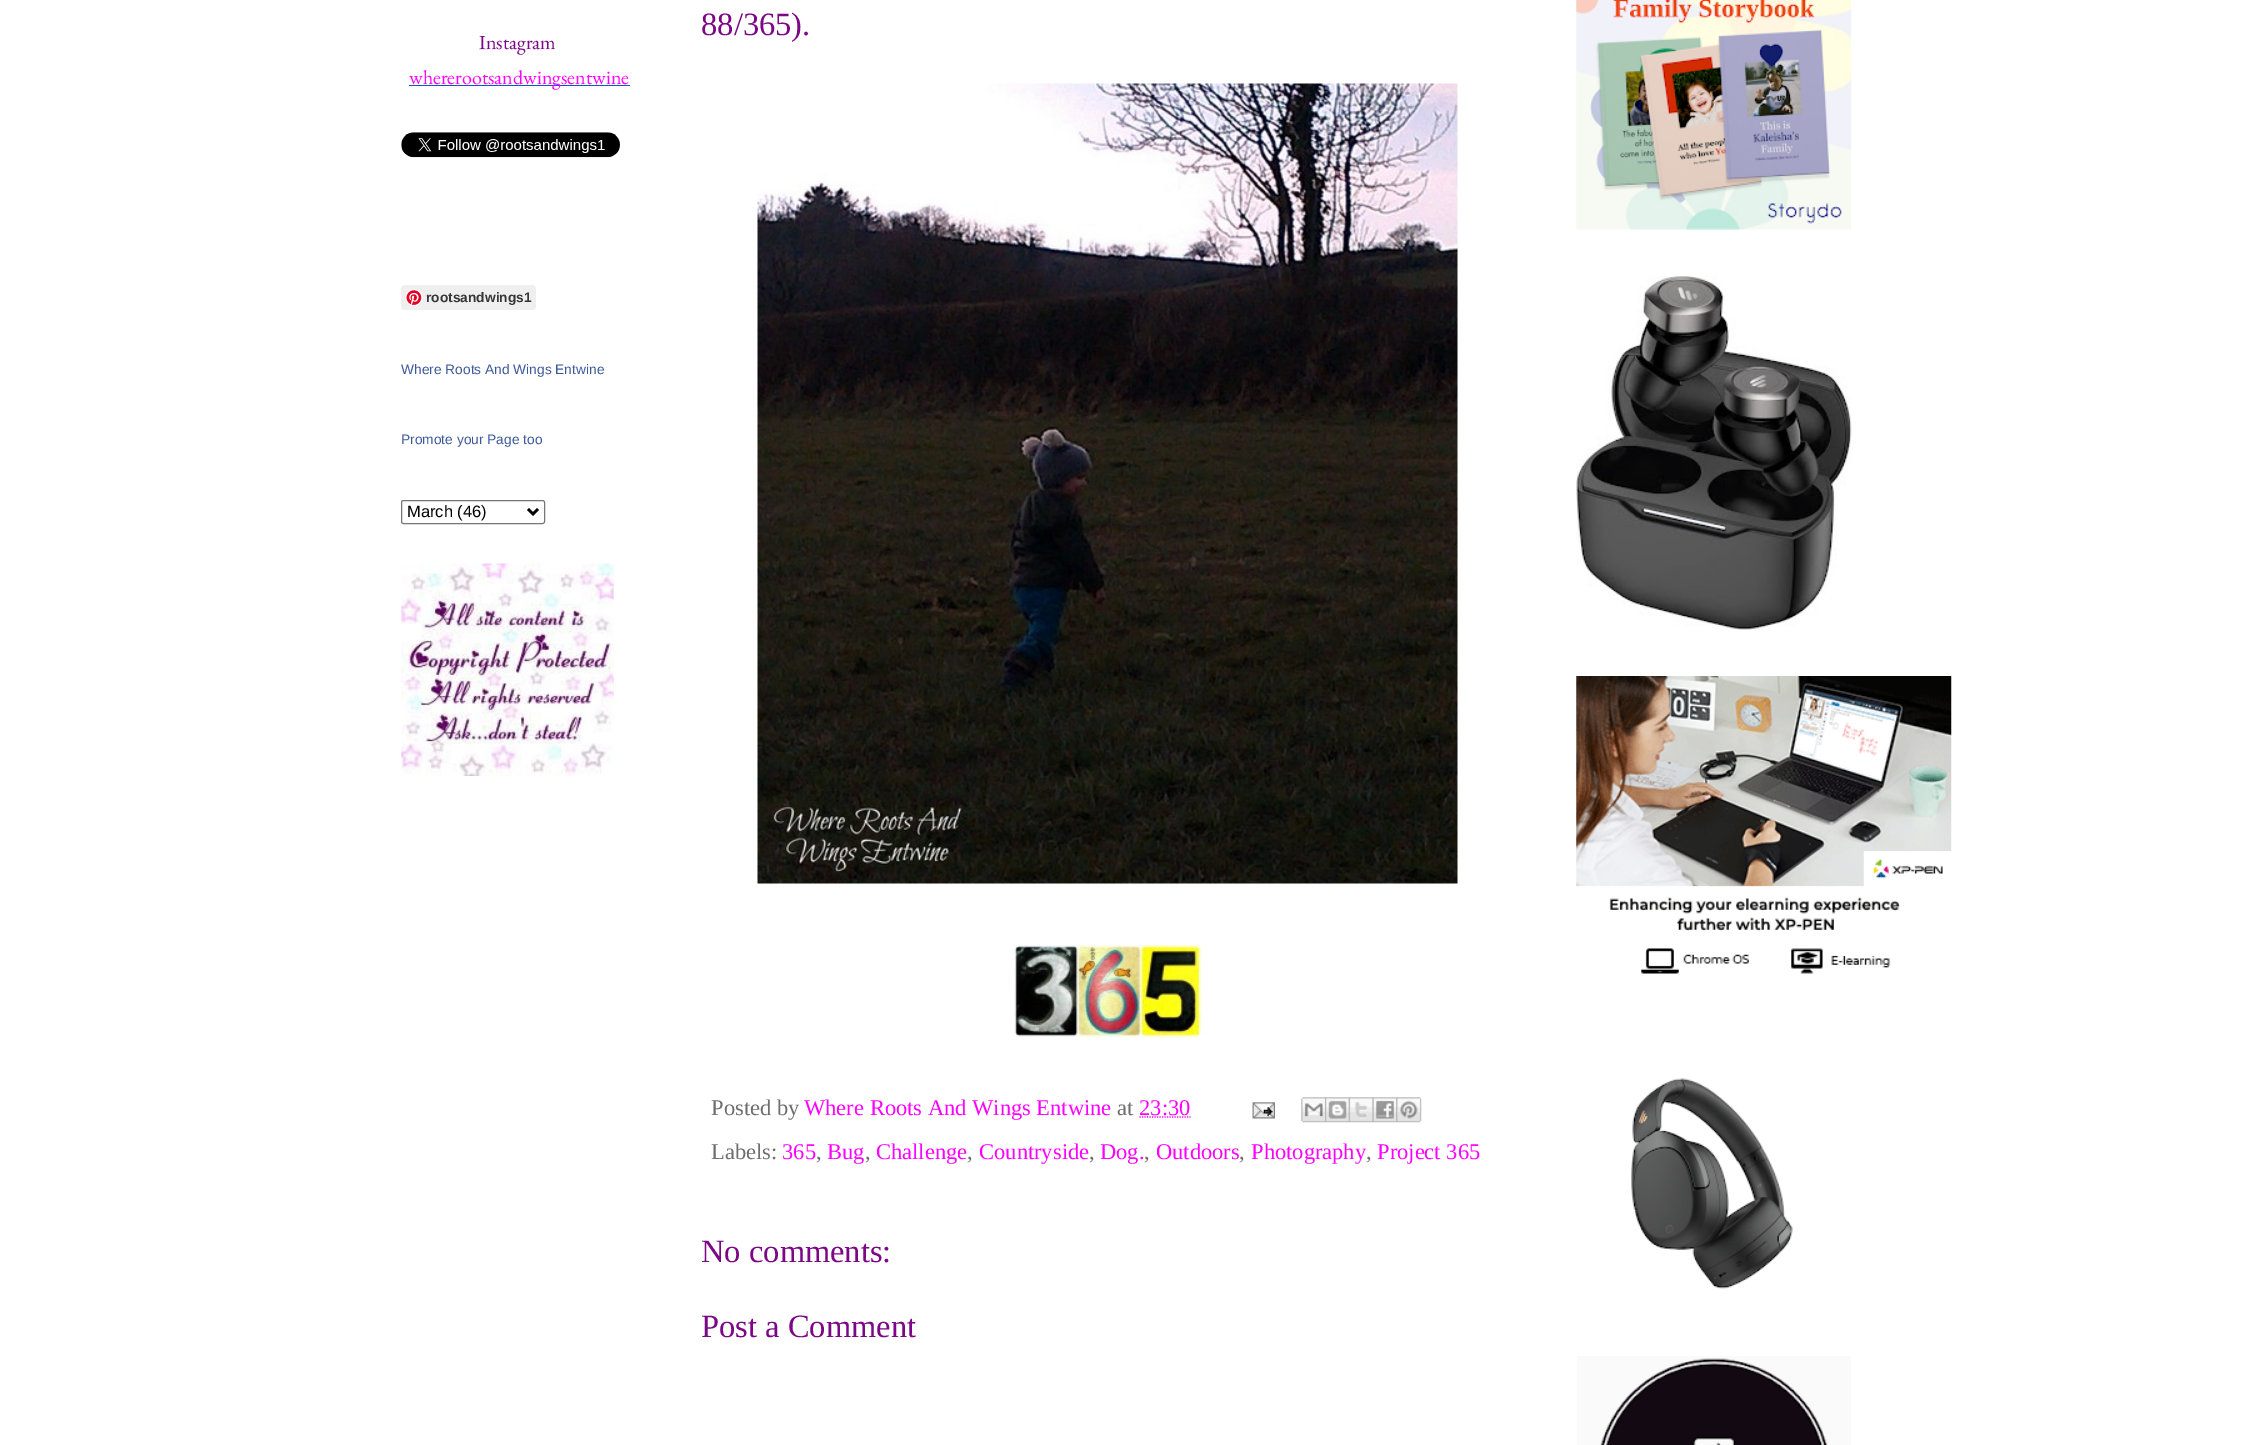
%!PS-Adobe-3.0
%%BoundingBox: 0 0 2251 1445
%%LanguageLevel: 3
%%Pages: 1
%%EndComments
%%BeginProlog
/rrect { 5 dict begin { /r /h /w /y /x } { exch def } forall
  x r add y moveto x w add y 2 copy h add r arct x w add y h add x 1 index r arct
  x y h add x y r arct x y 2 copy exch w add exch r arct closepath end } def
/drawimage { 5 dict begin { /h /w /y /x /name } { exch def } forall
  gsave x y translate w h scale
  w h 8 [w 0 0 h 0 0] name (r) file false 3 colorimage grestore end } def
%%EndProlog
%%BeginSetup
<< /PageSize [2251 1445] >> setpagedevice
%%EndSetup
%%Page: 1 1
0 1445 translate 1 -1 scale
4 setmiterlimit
1 setgray
0 0 2251 1445 rectfill
0.067 0.333 0.8 setrgbcolor
409 85 221 1 rectfill
(images/1.raw) 401 132 219 26 drawimage
0.937 setgray
401 285 135 25 4 rrect fill
(images/2.raw) 405 289 18 17 drawimage
0.463 setgray
401.5 500.5 143 23 2 rrect stroke
0 setgray
2.5 setlinewidth
newpath 528 509 moveto 533 514 lineto 538 509 lineto stroke
(images/3.raw) 401 563 213 213 drawimage
(images/4.raw) 757 83 701 801 drawimage
(images/5.raw) 1014 944 188 94 drawimage
1 0 1 setrgbcolor
1.2 setlinewidth
[1.25 1.25] 0 setdash
newpath 1139.5 1117 moveto 1190.5 1117 lineto stroke
(images/6.raw) 1252 1102 23 17 drawimage
(images/7.raw) 1301 1097 26 26 drawimage
(images/8.raw) 1325 1097 25 26 drawimage
(images/9.raw) 1348 1097 26 26 drawimage
(images/10.raw) 1372 1097 26 26 drawimage
(images/11.raw) 1396 1097 26 26 drawimage
(images/12.raw) 1576 0 276 230 drawimage
(images/13.raw) 1576 276 276 354 drawimage
(images/14.raw) 1576 676 376 298 drawimage
(images/15.raw) 1631 1078 162 211 drawimage
(images/16.raw) 1577 1356 274 89 drawimage
/EBGaramond-Regular [20 0 0 -20 0 0] selectfont
0.486 0.024 0.522 setrgbcolor
479 49 moveto (Instagram) show
1 0 1 setrgbcolor
409 84 moveto (whererootsandwingsentwine) show
/LiberationSans-Bold [13.75 0 0 -13.75 0 0] selectfont
0.212 setgray
426 302 moveto (rootsandwings1) show
/LiberationSans-Regular [13.75 0 0 -13.75 0 0] selectfont
0.231 0.349 0.596 setrgbcolor
401 374 moveto (Where Roots And Wings Entwine) show
401 444 moveto (Promote your Page too) show
/LiberationSans-Regular [16.5 0 0 -16.5 0 0] selectfont
0 setgray
407 517 moveto (March \(46\)) show
/LiberationSerif-Regular [32.5 0 0 -32.5 0 0] selectfont
0.486 0.024 0.522 setrgbcolor
701 35 moveto (88/365\).) show
/LiberationSerif-Regular [22.5 0 0 -22.5 0 0] selectfont
0.431 setgray
711 1115 moveto (Posted by) show
1 0 1 setrgbcolor
804 1115 moveto (Where Roots And Wings Entwine) show
0.431 setgray
1117 1115 moveto (at) show
1 0 1 setrgbcolor
1139 1115 moveto (23:30) show
0.431 setgray
711 1159 moveto (Labels:) show
1 0 1 setrgbcolor
782 1159 moveto (365) show
0.431 setgray
816 1159 moveto (,) show
1 0 1 setrgbcolor
827 1159 moveto (Bug) show
0.431 setgray
865 1159 moveto (,) show
1 0 1 setrgbcolor
876 1159 moveto (Challenge) show
0.431 setgray
967 1159 moveto (,) show
1 0 1 setrgbcolor
979 1159 moveto (Countryside) show
0.431 setgray
1089 1159 moveto (,) show
1 0 1 setrgbcolor
1100 1159 moveto (Dog.) show
0.431 setgray
1144 1159 moveto (,) show
1 0 1 setrgbcolor
1156 1159 moveto (Outdoors) show
0.431 setgray
1239 1159 moveto (,) show
1 0 1 setrgbcolor
1251 1159 moveto (Photography) show
0.431 setgray
1366 1159 moveto (,) show
1 0 1 setrgbcolor
1377 1159 moveto (Project 365) show
/LiberationSerif-Regular [32.5 0 0 -32.5 0 0] selectfont
0.486 0.024 0.522 setrgbcolor
701 1262 moveto (No comments:) show
701 1337 moveto (Post a Comment) show
showpage
%%EOF
